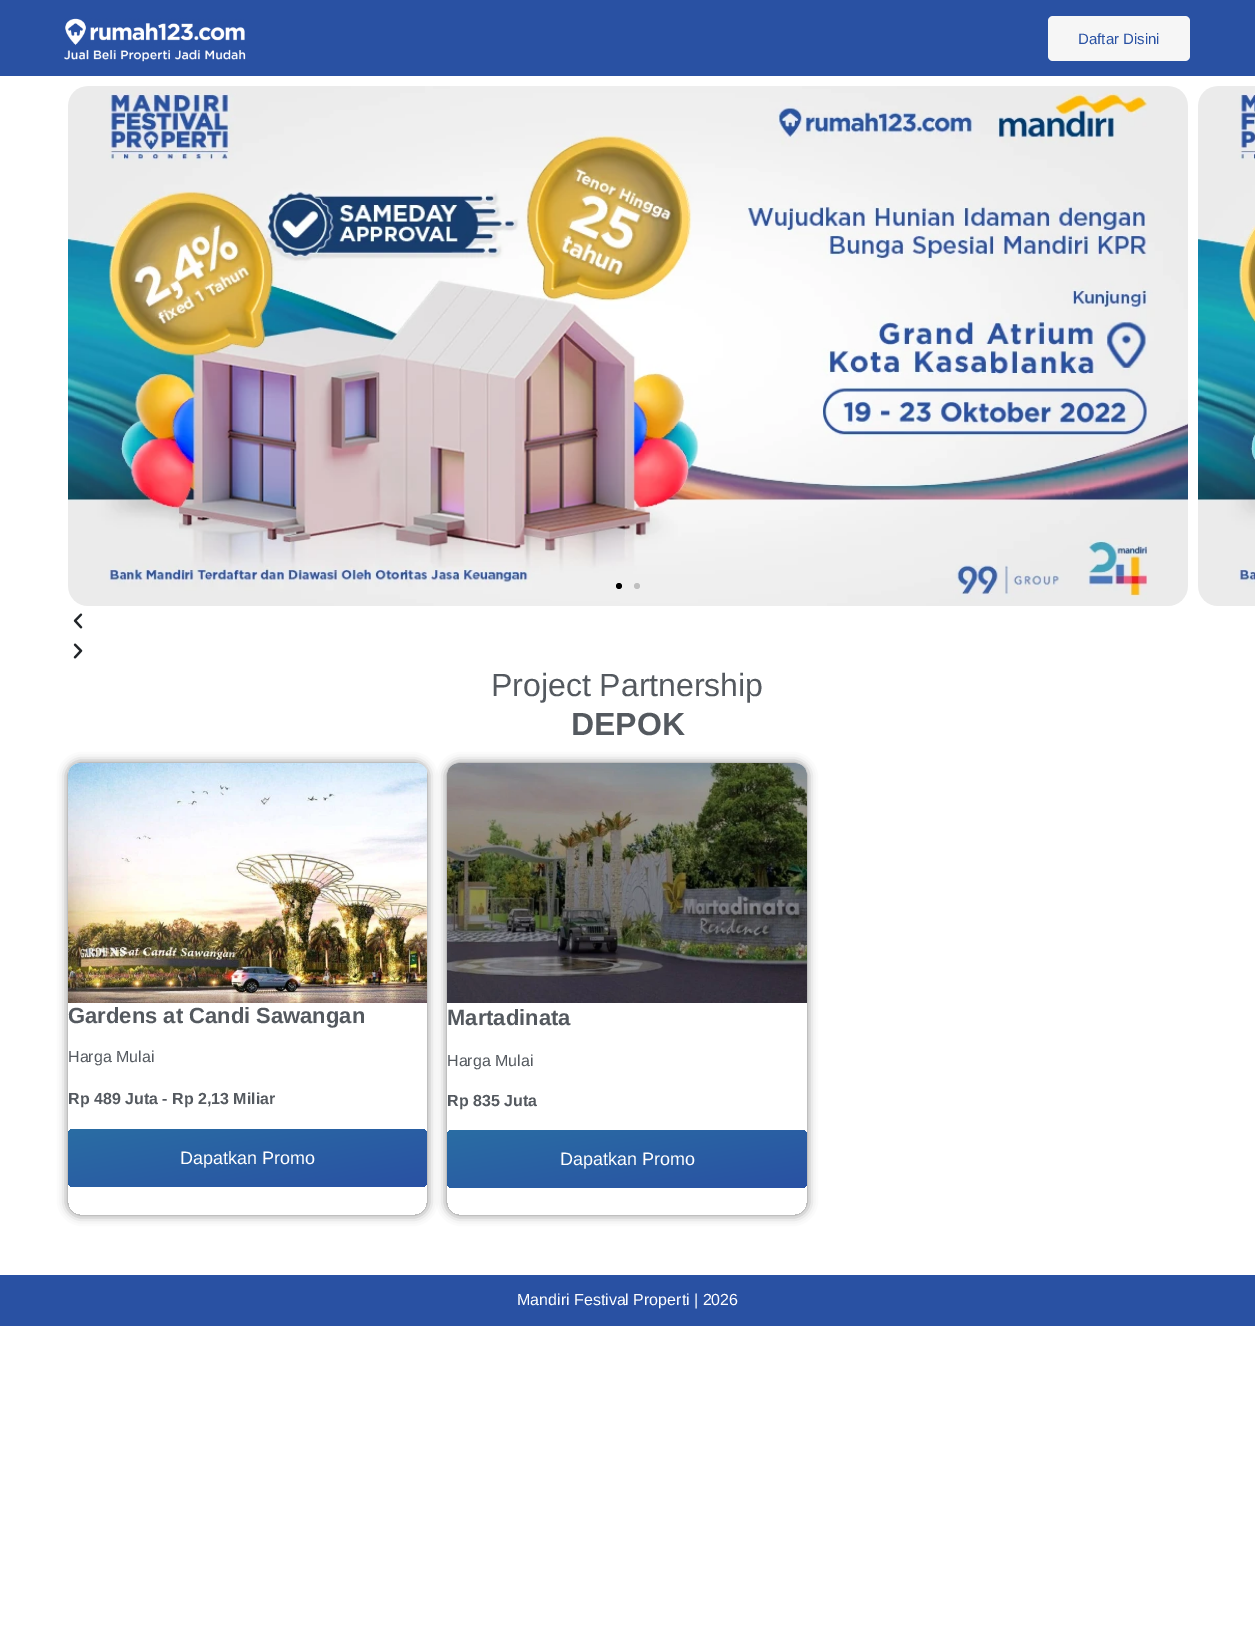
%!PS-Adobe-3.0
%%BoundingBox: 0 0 1255 1648
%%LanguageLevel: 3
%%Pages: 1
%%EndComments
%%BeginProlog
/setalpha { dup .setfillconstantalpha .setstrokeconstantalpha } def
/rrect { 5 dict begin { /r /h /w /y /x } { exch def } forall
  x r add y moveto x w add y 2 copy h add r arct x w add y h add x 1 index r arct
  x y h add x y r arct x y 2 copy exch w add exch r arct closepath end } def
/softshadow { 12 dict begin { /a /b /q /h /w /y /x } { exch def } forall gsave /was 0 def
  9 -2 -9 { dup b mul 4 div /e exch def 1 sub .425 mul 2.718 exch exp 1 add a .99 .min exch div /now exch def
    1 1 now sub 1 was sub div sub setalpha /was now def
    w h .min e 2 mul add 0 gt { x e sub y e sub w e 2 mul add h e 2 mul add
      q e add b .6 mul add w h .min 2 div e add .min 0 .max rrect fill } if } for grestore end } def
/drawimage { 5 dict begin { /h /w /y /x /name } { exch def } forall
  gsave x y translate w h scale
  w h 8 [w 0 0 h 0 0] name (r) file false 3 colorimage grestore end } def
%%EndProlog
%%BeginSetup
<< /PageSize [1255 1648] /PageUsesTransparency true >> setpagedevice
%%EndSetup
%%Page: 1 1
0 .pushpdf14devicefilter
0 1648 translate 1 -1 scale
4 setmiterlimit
1 setgray
0 0 1255 1648 rectfill
0.161 0.318 0.639 setrgbcolor
0 0 1255 76 rectfill
(images/1.raw) 64 18 182 44 drawimage
0.965 setgray
1048 16 142 45 5 rrect fill
(images/2.raw) 68 86 1120 520 drawimage
(images/3.raw) 1198 86 57 520 drawimage
0 setgray
newpath 619 586 3 0 360 arc closepath fill
0.749 setgray
newpath 637 586 3 0 360 arc closepath fill
(images/4.raw) 73 613 10 16 drawimage
(images/5.raw) 73 643 10 16 drawimage
gsave
newpath 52 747 moveto 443 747 lineto 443 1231 lineto 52 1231 lineto closepath 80 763 moveto 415 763 lineto 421.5 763 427 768.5 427 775 curveto 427 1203 lineto 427 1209.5 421.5 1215 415 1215 curveto 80 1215 lineto 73.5 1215 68 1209.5 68 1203 curveto 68 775 lineto 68 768.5 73.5 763 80 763 curveto closepath eoclip newpath
0 setgray
68 763 359 452 12 5 0.5 softshadow
grestore
(images/6.raw) 68 763 359 240 drawimage
gsave 68 1129 359 58 5 rrect clip newpath
<< /ShadingType 2 /ColorSpace /DeviceRGB /Coords [237 1099 258 1217] /Extend [true true] /Function << /FunctionType 2 /Domain [0 1] /C0 [0.161 0.427 0.639] /C1 [0.161 0.318 0.639] /N 1 >> >> shfill grestore
gsave
newpath 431 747 moveto 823 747 lineto 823 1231 lineto 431 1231 lineto closepath 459 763 moveto 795 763 lineto 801.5 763 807 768.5 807 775 curveto 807 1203 lineto 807 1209.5 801.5 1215 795 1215 curveto 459 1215 lineto 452.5 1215 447 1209.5 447 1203 curveto 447 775 lineto 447 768.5 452.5 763 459 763 curveto closepath eoclip newpath
0 setgray
447 763 360 452 12 5 0.5 softshadow
grestore
(images/7.raw) 447 763 360 240 drawimage
gsave 447 1130 360 58 5 rrect clip newpath
<< /ShadingType 2 /ColorSpace /DeviceRGB /Coords [617 1100 637 1218] /Extend [true true] /Function << /FunctionType 2 /Domain [0 1] /C0 [0.161 0.427 0.639] /C1 [0.161 0.318 0.639] /N 1 >> >> shfill grestore
0.161 0.318 0.639 setrgbcolor
0 1275 1255 51 rectfill
/LiberationSans-Regular [15 0 0 -15 0 0] selectfont
1078 44 moveto (Daftar Disini) show
/LiberationSans-Regular [32 0 0 -32 0 0] selectfont
0.329 0.349 0.373 setrgbcolor
491 696 moveto (Project Partnership) show
/LiberationSans-Bold [32 0 0 -32 0 0] selectfont
571 735 moveto (DEPOK) show
/LiberationSans-Bold [22 0 0 -22 0 0] selectfont
68 1023 moveto (Gardens at Candi Sawangan) show
/LiberationSans-Regular [16 0 0 -16 0 0] selectfont
68 1062 moveto (Harga Mulai) show
/LiberationSans-Bold [16 0 0 -16 0 0] selectfont
68 1104 moveto (Rp 489 Juta - Rp 2,13 Miliar) show
/LiberationSans-Regular [18 0 0 -18 0 0] selectfont
1 setgray
180 1164 moveto (Dapatkan Promo) show
/LiberationSans-Bold [22 0 0 -22 0 0] selectfont
0.329 0.349 0.373 setrgbcolor
447 1025 moveto (Martadinata) show
/LiberationSans-Regular [16 0 0 -16 0 0] selectfont
447 1066 moveto (Harga Mulai) show
/LiberationSans-Bold [16 0 0 -16 0 0] selectfont
447 1106 moveto (Rp 835 Juta) show
/LiberationSans-Regular [18 0 0 -18 0 0] selectfont
1 setgray
560 1165 moveto (Dapatkan Promo) show
/LiberationSans-Regular [16 0 0 -16 0 0] selectfont
517 1305 moveto (Mandiri Festival Properti | 2026) show
.poppdf14devicefilter showpage
%%EOF
